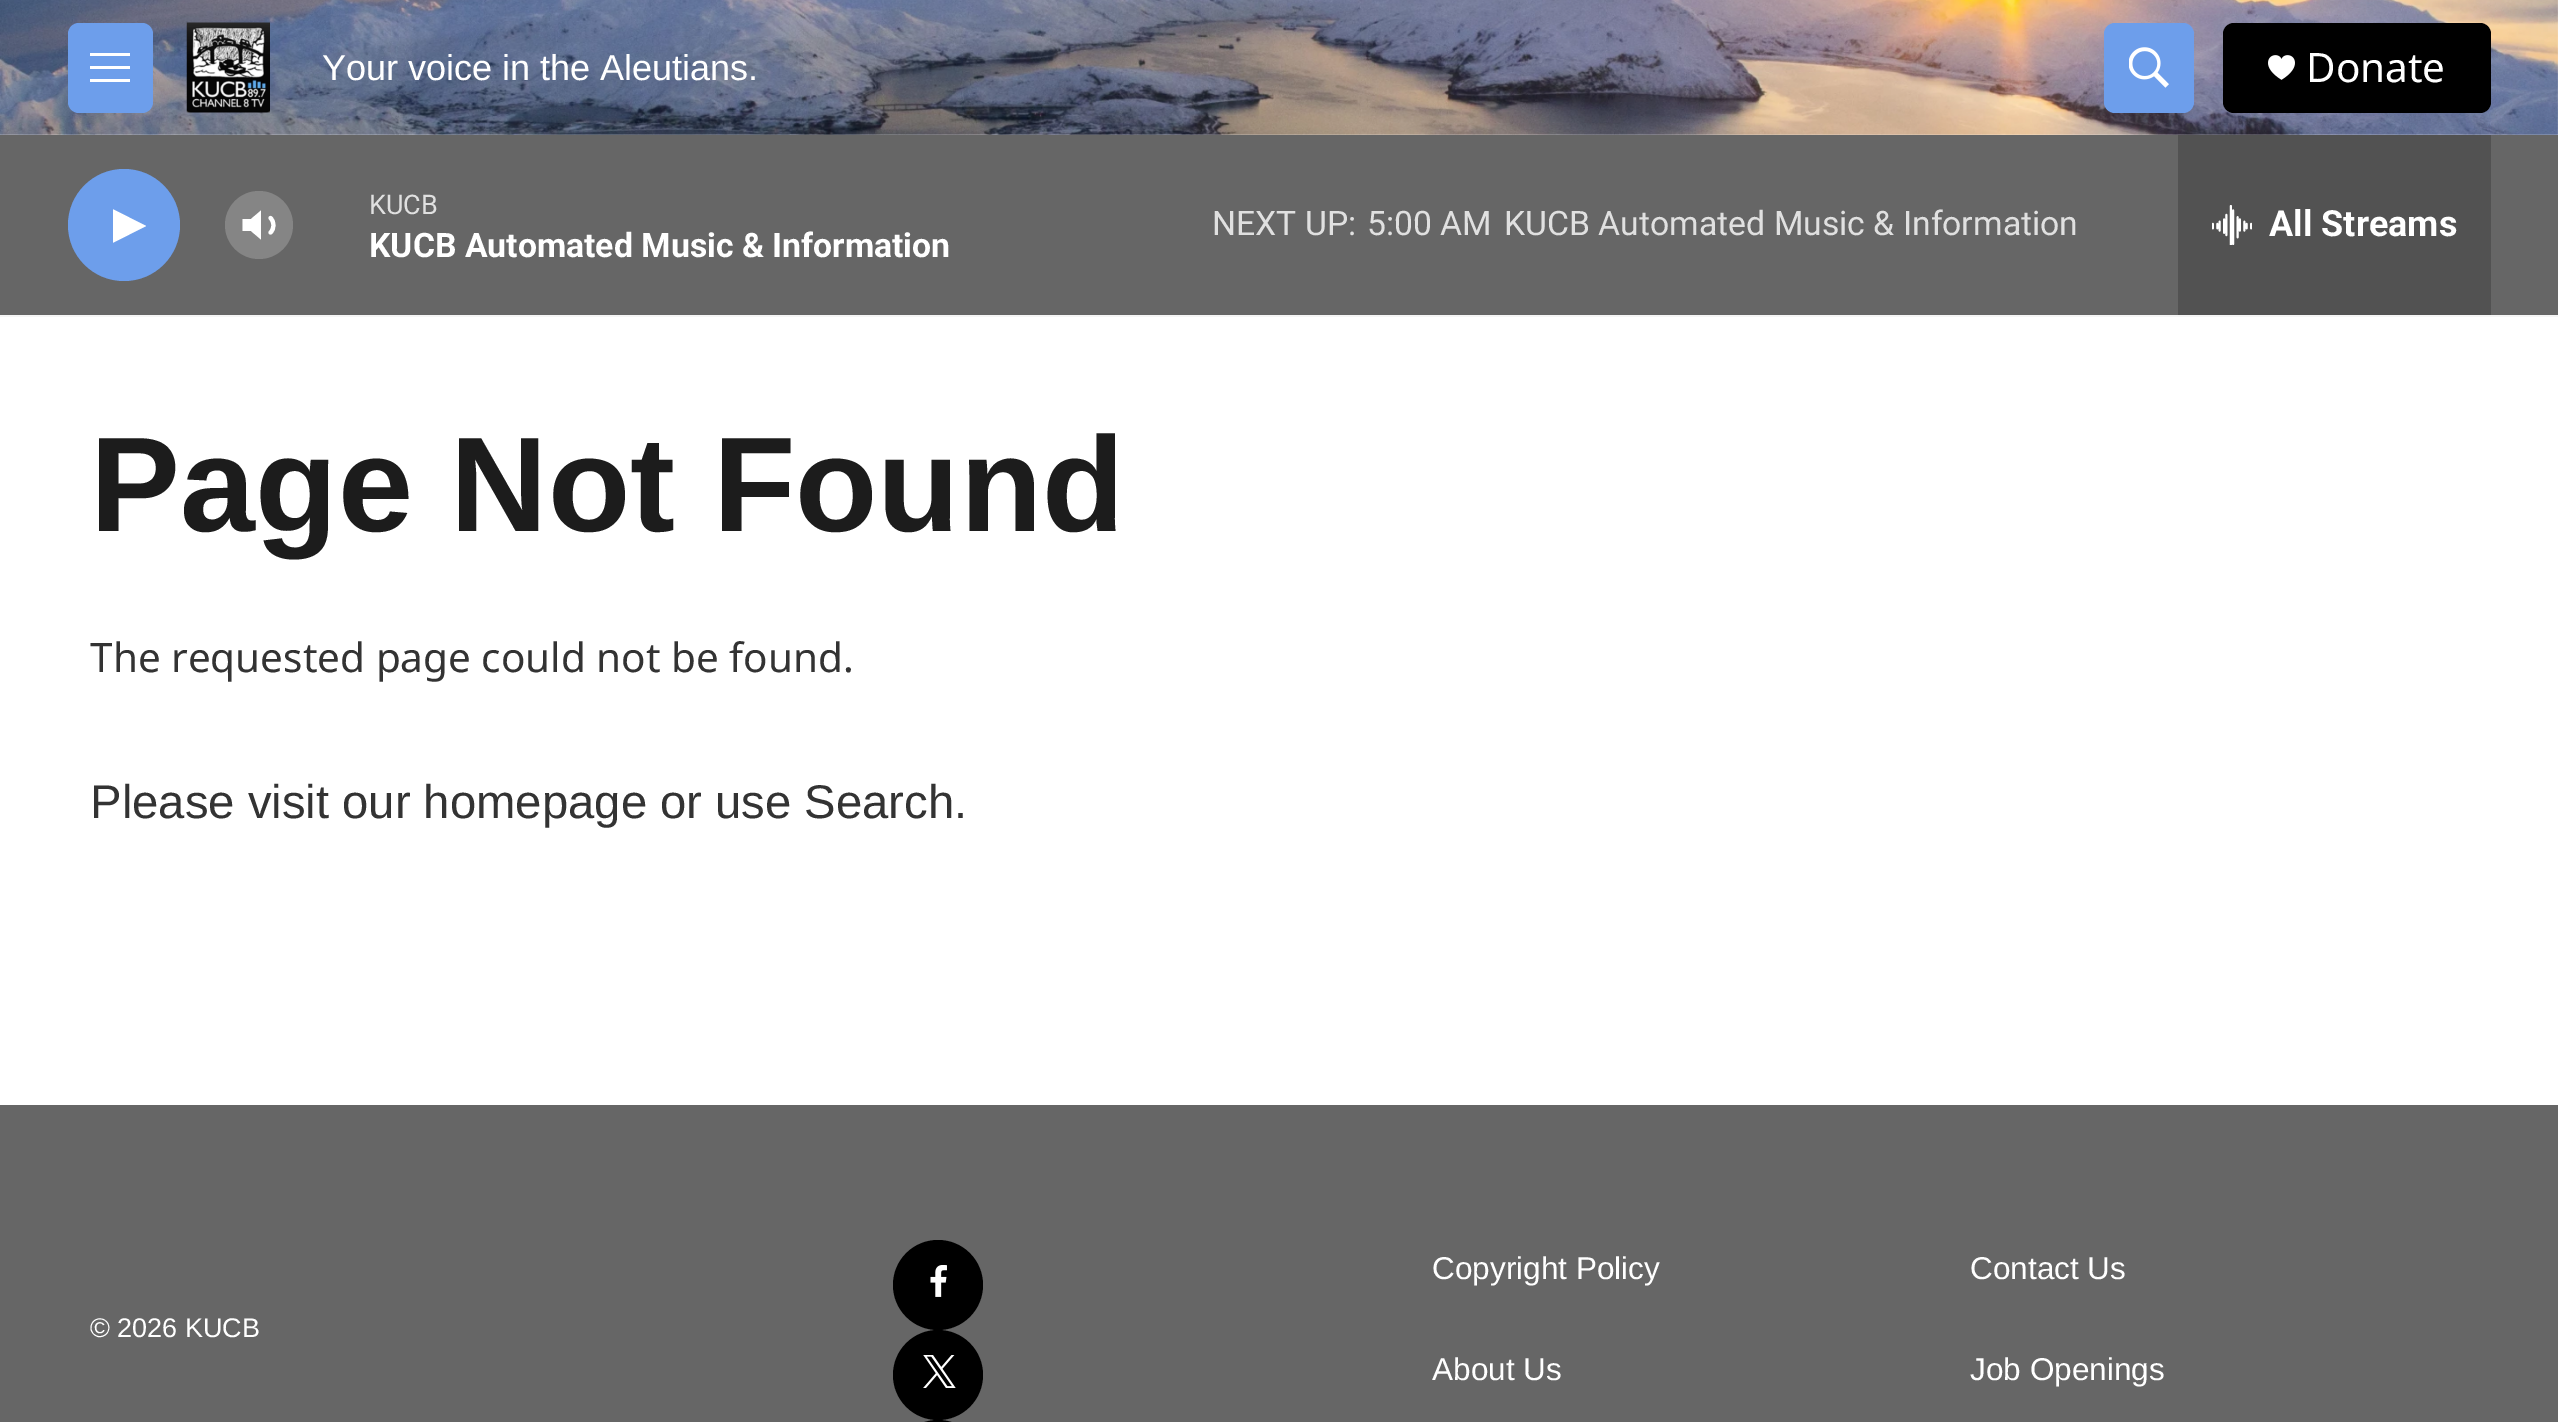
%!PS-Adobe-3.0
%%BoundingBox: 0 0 2558 1422
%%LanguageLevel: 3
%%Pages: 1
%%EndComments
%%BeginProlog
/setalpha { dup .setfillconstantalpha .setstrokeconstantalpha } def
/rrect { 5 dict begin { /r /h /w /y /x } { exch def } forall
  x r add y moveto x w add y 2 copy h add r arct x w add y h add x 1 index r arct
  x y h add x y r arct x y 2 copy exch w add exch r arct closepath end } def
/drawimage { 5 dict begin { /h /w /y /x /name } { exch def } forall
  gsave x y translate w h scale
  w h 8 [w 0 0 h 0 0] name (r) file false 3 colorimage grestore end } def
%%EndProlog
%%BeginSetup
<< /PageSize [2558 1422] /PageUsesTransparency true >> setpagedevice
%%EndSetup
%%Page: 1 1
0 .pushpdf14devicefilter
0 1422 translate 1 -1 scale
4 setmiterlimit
1 setgray
0 0 2558 1422 rectfill
0.961 setgray
0 315 2558 2 rectfill
(images/1.raw) 0 0 2558 135 drawimage
0.427 0.62 0.922 setrgbcolor
68 23 85 90 11 rrect fill
1 setgray
newpath 90 69 moveto 90 66 lineto 130 66 lineto 130 69 lineto closepath 90 56 moveto 90 53 lineto 130 53 lineto 130 56 lineto closepath 90 82 moveto 90 79 lineto 130 79 lineto 130 82 lineto closepath eofill
(images/2.raw) 186 22 84 91 drawimage
0.427 0.62 0.922 setrgbcolor
2104 23 90 90 11 rrect fill
(images/3.raw) 2129 47 40 41 drawimage
0 setgray
2223 23 268 90 11 rrect fill
(images/4.raw) 2268 55 27 25 drawimage
0.4 setgray
0 135 2558 180 rectfill
0.427 0.62 0.922 setrgbcolor
newpath 124 225 56 0 360 arc closepath fill
gsave
113 205 33 43 rectclip
1 setgray
newpath 112.5 209 moveto 146 226 lineto 112.5 243 lineto closepath fill
grestore
1 setgray
newpath 261 210.5 moveto 251 219 lineto 242.5 219 lineto 242.5 231 lineto 251 231 lineto 261 239.5 lineto closepath fill
4.1 setlinewidth
1 setlinecap
1 setlinejoin
newpath 270.5 218 moveto 274.5 222 274.5 228.5 270.5 232.5 curveto stroke
0.2 setalpha
newpath 259 225 34 0 360 arc closepath fill
1 setalpha
0.322 setgray
2178 135 313 180 rectfill
(images/5.raw) 2212 205 40 40 drawimage
0.4 setgray
0 1105 2558 317 rectfill
0 setgray
newpath 938 1285 45 0 360 arc closepath fill
(images/6.raw) 930 1265 17 32 drawimage
newpath 938 1375 45 0 360 arc closepath fill
(images/7.raw) 923 1355 33 33 drawimage
893 1420 90 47 45 rrect fill
/LiberationSans-Regular [36 0 0 -36 0 0] selectfont
1 setgray
322 80 moveto (Your voice in the Aleutians.) show
/NotoSans-Regular [40.5 0 0 -40.5 0 0] selectfont
2306 82 moveto (Donate) show
/Roboto-Regular [27 0 0 -27 0 0] selectfont
0.878 setgray
369 214 moveto (KUCB) show
/Roboto-Bold [33.75 0 0 -33.75 0 0] selectfont
1 setgray
369 257 moveto (KUCB Automated Music & Information) show
/Roboto-Regular [33.75 0 0 -33.75 0 0] selectfont
0.878 setgray
1212 235 moveto (NEXT UP:) show
1367 235 moveto (5:00 AM) show
1504 235 moveto (KUCB Automated Music & Information) show
/Roboto-Bold [36 0 0 -36 0 0] selectfont
1 setgray
2269 236 moveto (All Streams) show
/LiberationSans-Bold [135 0 0 -135 0 0] selectfont
0.11 setgray
90 531 moveto (Page Not Found) show
/NotoSans-Regular [40.5 0 0 -40.5 0 0] selectfont
0.2 setgray
90 672 moveto (The requested page could not be found.) show
/LiberationSans-Regular [47.25 0 0 -47.25 0 0] selectfont
90 818 moveto (Please visit our homepage or use Search.) show
/LiberationSans-Regular [27 0 0 -27 0 0] selectfont
1 setgray
90 1337 moveto (© 2026 KUCB) show
/LiberationSans-Regular [31.5 0 0 -31.5 0 0] selectfont
1432 1279 moveto (Copyright Policy) show
1970 1279 moveto (Contact Us) show
1432 1380 moveto (About Us) show
1970 1380 moveto (Job Openings) show
.poppdf14devicefilter showpage
%%EOF
